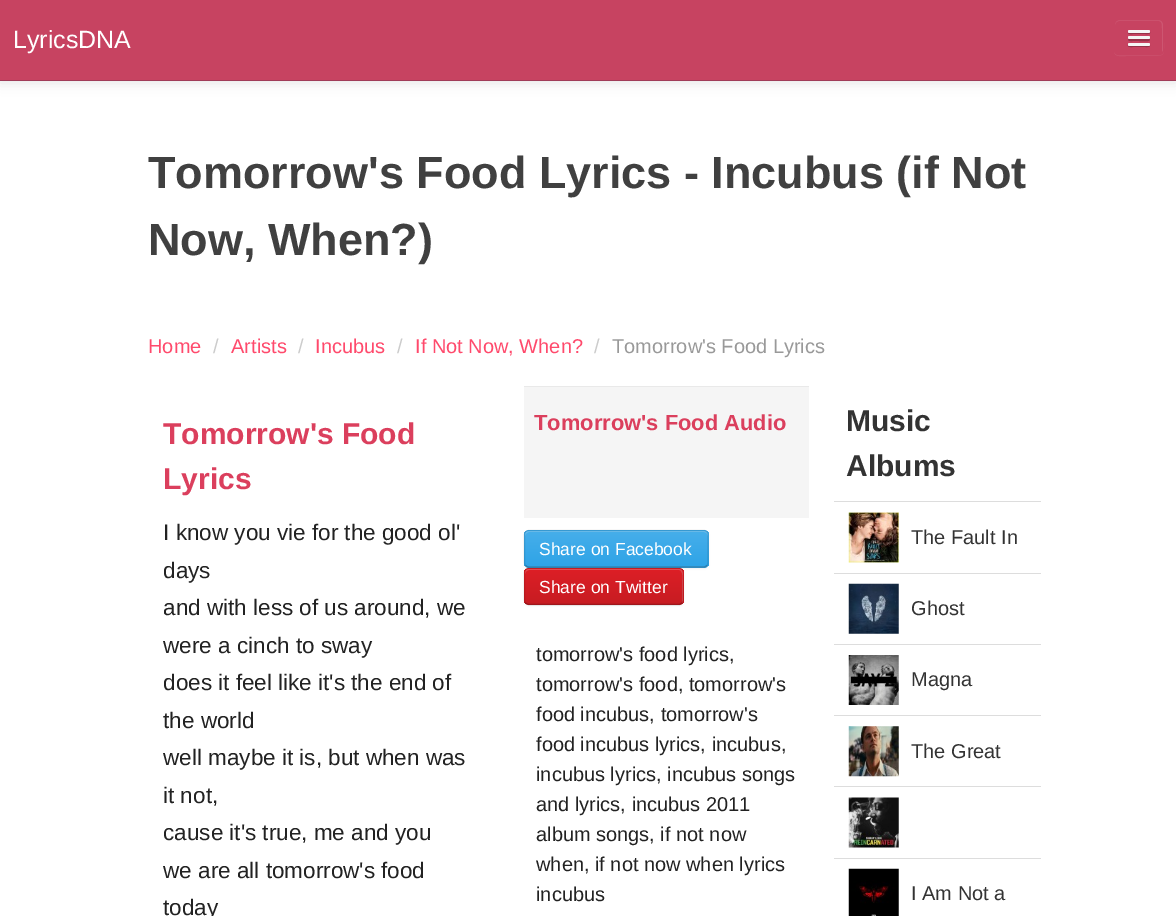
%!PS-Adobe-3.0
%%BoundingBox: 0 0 1176 916
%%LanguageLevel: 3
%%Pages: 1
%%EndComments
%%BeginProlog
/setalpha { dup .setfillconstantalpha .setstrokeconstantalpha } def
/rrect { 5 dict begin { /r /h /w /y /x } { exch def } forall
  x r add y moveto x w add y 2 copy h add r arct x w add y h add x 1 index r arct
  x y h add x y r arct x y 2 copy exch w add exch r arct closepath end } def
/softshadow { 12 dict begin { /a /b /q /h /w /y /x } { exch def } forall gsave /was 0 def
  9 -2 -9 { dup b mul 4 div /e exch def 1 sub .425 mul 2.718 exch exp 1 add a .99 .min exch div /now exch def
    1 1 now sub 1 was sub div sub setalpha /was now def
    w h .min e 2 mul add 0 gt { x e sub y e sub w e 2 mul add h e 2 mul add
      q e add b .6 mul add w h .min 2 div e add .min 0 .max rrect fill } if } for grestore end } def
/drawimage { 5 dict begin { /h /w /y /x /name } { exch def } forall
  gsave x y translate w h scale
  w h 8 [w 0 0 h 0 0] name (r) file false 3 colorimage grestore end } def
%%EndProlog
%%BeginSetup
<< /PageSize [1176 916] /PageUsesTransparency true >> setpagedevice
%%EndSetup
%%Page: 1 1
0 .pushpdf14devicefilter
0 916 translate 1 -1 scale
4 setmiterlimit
1 setgray
0 0 1176 916 rectfill
0 setgray
0 1 1176 82 0 6 0.1 softshadow
0.78 0.263 0.38 setrgbcolor
0 0 1176 80 rectfill
0.627 0.235 0.345 setrgbcolor
0 80 1176 1 rectfill
0.796 0.318 0.427 setrgbcolor
newpath 1114 52 moveto 1115 54 lineto 1117 57 1123 56 1126 56 curveto 1152 56 lineto 1165 56 1164 55 1164 42 curveto 1164 23 lineto 1164 46 lineto 1164 56 1162 55 1152 55 curveto 1125 55 lineto 1122 55 1116 56 1114 52 curveto closepath fill
0.78 0.263 0.38 setrgbcolor
1114 19 50 36 5 rrect fill
0.804 0.337 0.443 setrgbcolor
newpath 1119 21 moveto 1146 21 lineto 1163 21 1162 18 1162 34 curveto 1162 53 lineto 1164 51 1163 40 1163 37 curveto 1163 17 1166 20 1146 20 curveto 1126 20 lineto 1121 20 1115 19 1115 25 curveto 1115 23 1117 21 1119 21 curveto closepath fill
0.78 0.263 0.38 setrgbcolor
1114.5 19.5 49 35 4.5 rrect stroke
0.584 0.196 0.286 setrgbcolor
newpath 1128 32.5 moveto 1127.5 34.5 1131.5 34 1132.5 34 curveto 1145.5 34 lineto 1146 34 1151 34.5 1150 32 curveto 1149 32.5 lineto 1147 32.5 1128.5 32.5 1128 32.5 curveto closepath fill
0.961 setgray
1128 30 22 3 1.5 rrect fill
0.584 0.196 0.286 setrgbcolor
newpath 1128.5 38.5 moveto 1126.5 41.5 1132 41 1132.5 41 curveto 1139 41 lineto 1141 41 1149 41.5 1149.5 40.5 curveto 1150 39.5 1150 39 1149.5 38.5 curveto 1149 39 1129.5 39 1128.5 38.5 curveto closepath fill
0.961 setgray
1128 36 22 3 1.5 rrect fill
0.584 0.196 0.286 setrgbcolor
newpath 1128 45 moveto 1127 47.5 1132 47 1132.5 47 curveto 1145.5 47 lineto 1145.5 47 1152 47.5 1149.5 44.5 curveto 1149 45 lineto closepath fill
0.961 setgray
1128 43 22 3 1.5 rrect fill
524 387 285 131 rectfill
0.914 setgray
524 386 285 1 rectfill
0 setgray
524 531 185 38 5 1 0.05 softshadow
0.239 0.667 0.914 setrgbcolor
524 530 185 38 5 rrect fill
gsave
524 530 185 38 5 rrect clip newpath
gsave newpath 524 531 moveto 709 531 lineto 709 566 lineto 524 566 lineto closepath clip newpath
<< /ShadingType 2 /ColorSpace /DeviceRGB /Coords [616 531 616 566] /Extend [true true] /Function << /FunctionType 2 /Domain [0 1] /C0 [0.275 0.682 0.918] /C1 [0.184 0.643 0.906] /N 1 >> >> shfill grestore
grestore
0.42 0.745 0.933 setrgbcolor
newpath 529 532 moveto 704 532 lineto 706 532 708 534 708 536 curveto 708 535 lineto 708 533 706 531 704 531 curveto 529 531 lineto 527 531 525 533 525 535 curveto 525 536 lineto 525 534 527 532 529 532 curveto closepath fill
0.25 setalpha
0 setgray
1.2 setlinewidth
newpath 707 565.5 moveto 706 566.5 705 567 704 567 curveto 529 567 lineto 527.5 567 526.5 566.5 525.5 565.5 curveto stroke
0.1 setalpha
newpath 525.5 565.5 moveto 525 565 524.5 563.5 524.5 562.5 curveto 524.5 535 lineto 524.5 534 525 532.5 525.5 532 curveto 526.5 531 527.5 530.5 529 530.5 curveto 704 530.5 lineto 705 530.5 706 531 707 532 curveto 707.5 532.5 708 534 708 535 curveto 708 562.5 lineto 708 563.5 707.5 565 707 565.5 curveto stroke
1 setalpha
524 569 160 37 5 1 0.05 softshadow
0.831 0.118 0.141 setrgbcolor
524 568 160 37 5 rrect fill
gsave
524 568 160 37 5 rrect clip newpath
gsave newpath 524 569 moveto 684 569 lineto 684 604 lineto 524 604 lineto closepath clip newpath
<< /ShadingType 2 /ColorSpace /DeviceRGB /Coords [604 569 604 604] /Extend [true true] /Function << /FunctionType 2 /Domain [0 1] /C0 [0.867 0.122 0.149] /C1 [0.78 0.11 0.133] /N 1 >> >> shfill grestore
grestore
0.2 setalpha
1 setgray
newpath 529 570 moveto 679 570 lineto 684 570 682 581 682 583 curveto 682 603 lineto 682 602 683 601 683 600 curveto 683 573 lineto 683 571 681 569 679 569 curveto 529 569 lineto 527 569 525 571 525 573 curveto 525 574 lineto 525 572 527 570 529 570 curveto closepath fill
0.25 setalpha
0 setgray
newpath 682 603 moveto 681 604 680 604.5 679 604.5 curveto 529 604.5 lineto 527.5 604.5 526.5 604 525.5 603 curveto stroke
0.1 setalpha
newpath 525.5 603 moveto 525 602.5 524.5 601 524.5 600 curveto 524.5 572.5 lineto 524.5 571.5 525 570 525.5 569.5 curveto 526.5 568.5 527.5 568 529 568 curveto 679 568 lineto 680 568 681 568.5 682 569.5 curveto 682.5 570 683 571.5 683 572.5 curveto 683 600 lineto 683 601 682.5 602.5 682 603 curveto stroke
1 setalpha
0.867 setgray
834 501 207 1 rectfill
834 573 207 1 rectfill
(images/1.raw) 848 512 51 51 drawimage
834 644 207 1 rectfill
(images/2.raw) 848 583 51 51 drawimage
834 715 207 1 rectfill
(images/3.raw) 848 655 51 50 drawimage
834 786 207 1 rectfill
(images/4.raw) 848 726 51 51 drawimage
834 858 207 1 rectfill
(images/5.raw) 848 797 51 51 drawimage
(images/6.raw) 848 868 51 48 drawimage
/LiberationSans-Regular [25 0 0 -25 0 0] selectfont
1 setgray
13 48 moveto (LyricsDNA) show
/LiberationSans-Bold [45 0 0 -45 0 0] selectfont
0.251 setgray
148 188 moveto (Tomorrow's Food Lyrics - Incubus \(if Not) show
148 255 moveto (Now, When?\)) show
/LiberationSans-Regular [20 0 0 -20 0 0] selectfont
1 0.29 0.424 setrgbcolor
148 353 moveto (Home) show
0.8 setgray
213 353 moveto (/) show
1 0.29 0.424 setrgbcolor
231 353 moveto (Artists) show
0.8 setgray
298 353 moveto (/) show
1 0.29 0.424 setrgbcolor
315 353 moveto (Incubus) show
0.8 setgray
397 353 moveto (/) show
1 0.29 0.424 setrgbcolor
415 353 moveto (If Not Now, When?) show
0.8 setgray
594 353 moveto (/) show
0.6 setgray
612 353 moveto (Tomorrow's Food Lyrics) show
/LiberationSans-Bold [30 0 0 -30 0 0] selectfont
0.859 0.247 0.365 setrgbcolor
163 444 moveto (Tomorrow's Food) show
163 489 moveto (Lyrics) show
/LiberationSans-Regular [22.5 0 0 -22.5 0 0] selectfont
0.133 setgray
163 540 moveto (I know you vie for the good ol') show
163 578 moveto (days) show
163 615 moveto (and with less of us around, we) show
163 653 moveto (were a cinch to sway) show
163 690 moveto (does it feel like it's the end of) show
163 728 moveto (the world) show
163 765 moveto (well maybe it is, but when was) show
163 803 moveto (it not,) show
163 840 moveto (cause it's true, me and you) show
163 878 moveto (we are all tomorrow's food) show
163 915 moveto (today) show
/LiberationSans-Bold [21.9 0 0 -21.9 0 0] selectfont
0.859 0.247 0.365 setrgbcolor
534 430 moveto (Tomorrow's Food Audio) show
/LiberationSans-Regular [17.5 0 0 -17.5 0 0] selectfont
1 setgray
539 555 moveto (Share on Facebook) show
539 593 moveto (Share on Twitter) show
/LiberationSans-Regular [20 0 0 -20 0 0] selectfont
0.133 setgray
536 661 moveto (tomorrow's food lyrics,) show
536 691 moveto (tomorrow's food, tomorrow's) show
536 721 moveto (food incubus, tomorrow's) show
536 751 moveto (food incubus lyrics, incubus,) show
536 781 moveto (incubus lyrics, incubus songs) show
536 811 moveto (and lyrics, incubus 2011) show
536 841 moveto (album songs, if not now) show
536 871 moveto (when, if not now when lyrics) show
536 901 moveto (incubus) show
/LiberationSans-Bold [30 0 0 -30 0 0] selectfont
0.2 setgray
846 431 moveto (Music) show
846 476 moveto (Albums) show
/LiberationSans-Regular [20 0 0 -20 0 0] selectfont
911 544 moveto (The Fault In) show
911 615 moveto (Ghost) show
911 686 moveto (Magna) show
911 758 moveto (The Great) show
911 900 moveto (I Am Not a) show
.poppdf14devicefilter showpage
%%EOF
